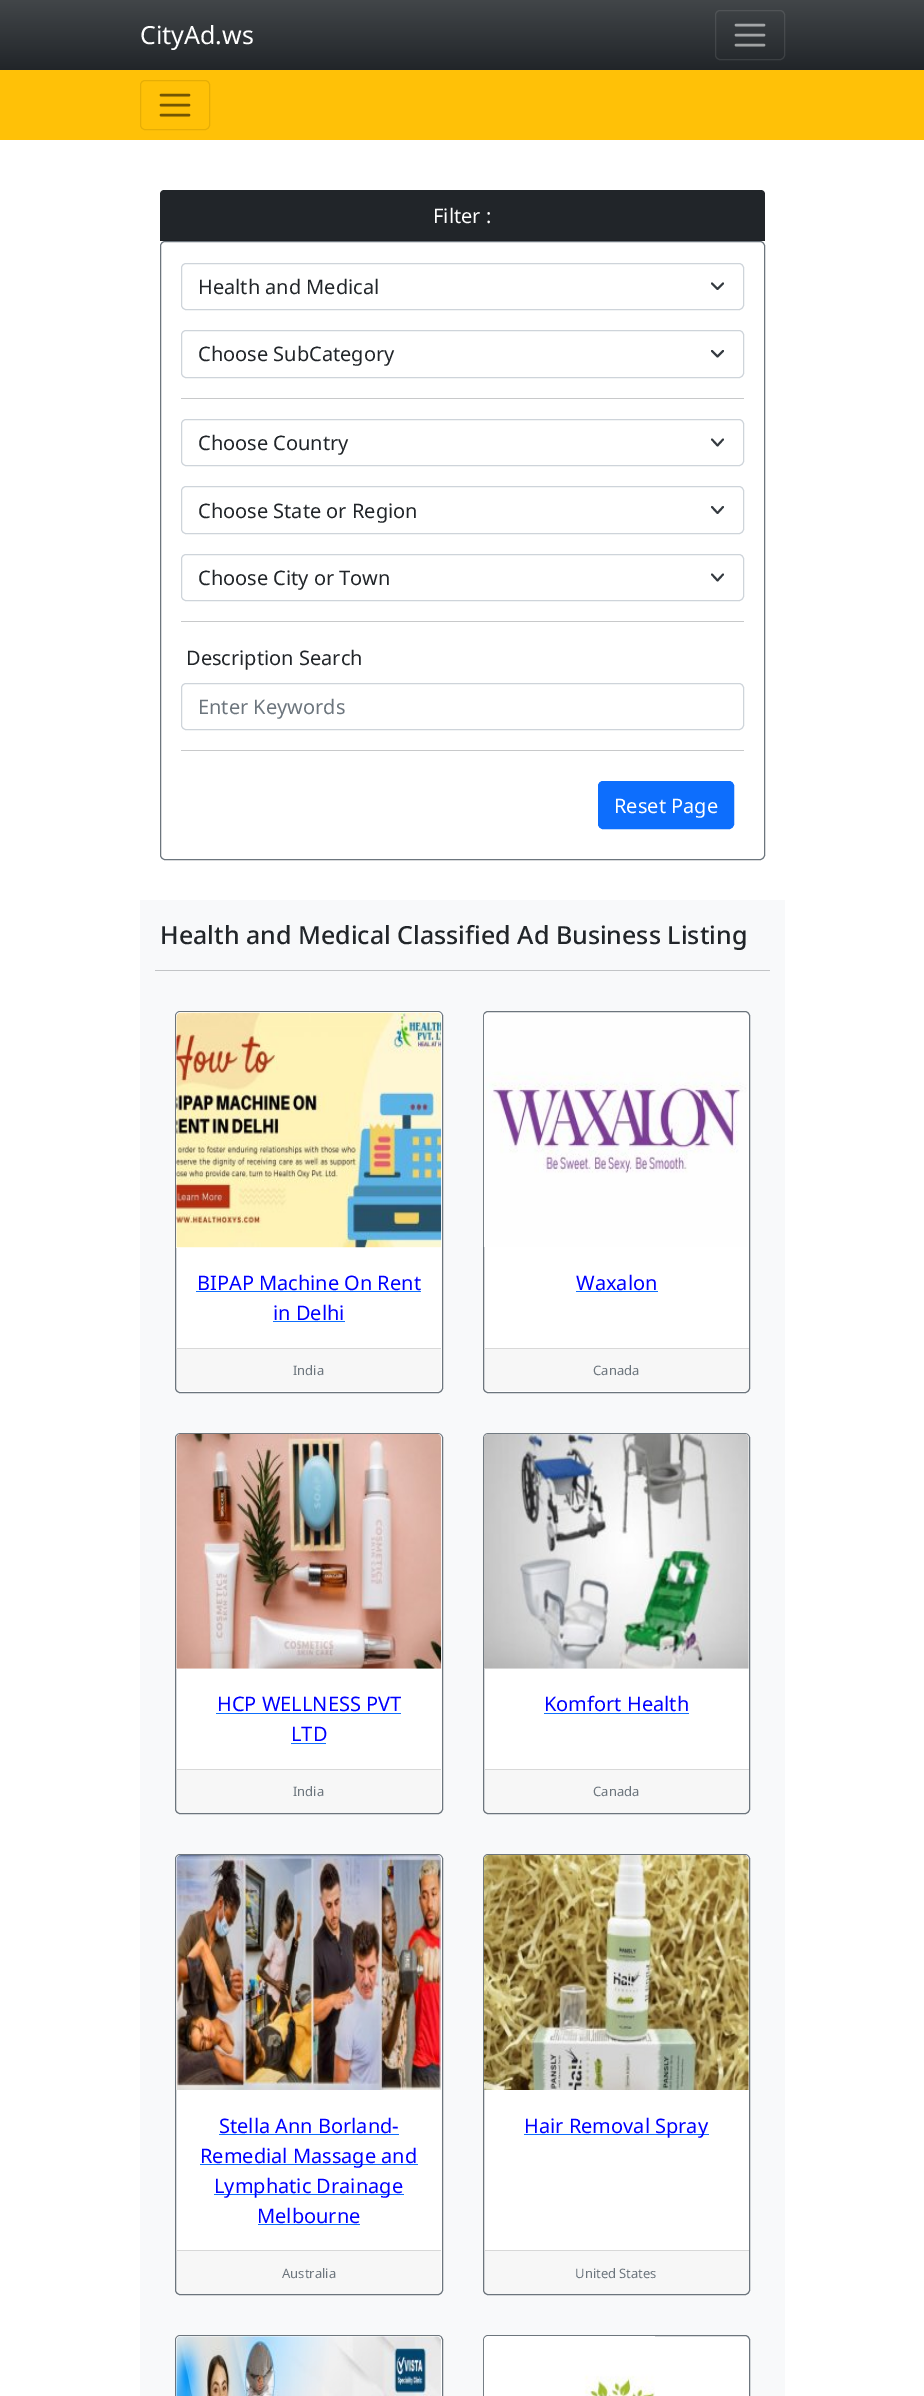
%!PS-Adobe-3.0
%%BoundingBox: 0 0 924 2396
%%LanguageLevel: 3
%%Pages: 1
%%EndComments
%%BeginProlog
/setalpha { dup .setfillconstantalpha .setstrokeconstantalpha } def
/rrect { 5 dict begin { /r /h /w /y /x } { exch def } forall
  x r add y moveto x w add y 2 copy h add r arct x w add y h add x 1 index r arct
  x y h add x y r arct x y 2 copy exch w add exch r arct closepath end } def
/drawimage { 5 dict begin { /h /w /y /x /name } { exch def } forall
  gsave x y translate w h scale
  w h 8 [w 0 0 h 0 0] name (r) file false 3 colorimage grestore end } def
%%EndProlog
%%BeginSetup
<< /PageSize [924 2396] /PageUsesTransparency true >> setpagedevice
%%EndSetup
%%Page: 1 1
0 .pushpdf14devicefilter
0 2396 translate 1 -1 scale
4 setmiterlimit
1 setgray
0 0 924 2396 rectfill
gsave newpath 0 0 moveto 924 0 lineto 924 70 lineto 0 70 lineto closepath clip newpath
<< /ShadingType 2 /ColorSpace /DeviceRGB /Coords [463 0 463 70] /Extend [true true] /Function << /FunctionType 2 /Domain [0 1] /C0 [0.259 0.275 0.286] /C1 [0.129 0.145 0.161] /N 1 >> >> shfill grestore
0.1 setalpha
715.5 10.5 69 49 4.5 rrect stroke
0.55 setalpha
2.5 setlinewidth
1 setlinecap
newpath 736 25 moveto 764 25 lineto 736 35 moveto 764 35 lineto 736 45 moveto 764 45 lineto stroke
1 setalpha
1 0.757 0.027 setrgbcolor
0 70 924 70 rectfill
0.902 0.682 0.024 setrgbcolor
1 setlinewidth
0 setlinecap
140.5 80.5 69 49 4.5 rrect stroke
0.451 0.341 0.012 setrgbcolor
2.5 setlinewidth
1 setlinecap
newpath 161 95 moveto 189 95 lineto 161 105 moveto 189 105 lineto 161 115 moveto 189 115 lineto stroke
0.129 0.145 0.161 setrgbcolor
newpath 164 190 moveto 761 190 lineto 763 190 765 192 765 194 curveto 765 241 lineto 160 241 lineto 160 194 lineto 160 192 162 190 164 190 curveto closepath fill
0.114 0.125 0.141 setrgbcolor
160 240 605 1 rectfill
0.424 0.459 0.49 setrgbcolor
1 setlinewidth
0 setlinecap
160.5 241.5 604 618 4.5 rrect stroke
0.204 0.227 0.251 setrgbcolor
1.9 setlinewidth
1 setlinecap
1 setlinejoin
newpath 712 283.5 moveto 717.5 289 lineto 723 283.5 lineto stroke
0.808 0.831 0.855 setrgbcolor
1 setlinewidth
0 setlinecap
0 setlinejoin
181.5 263.5 562 46 4.5 rrect stroke
0.204 0.227 0.251 setrgbcolor
1.9 setlinewidth
1 setlinecap
1 setlinejoin
newpath 712 351 moveto 717.5 356.5 lineto 723 351 lineto stroke
0.808 0.831 0.855 setrgbcolor
1 setlinewidth
0 setlinecap
0 setlinejoin
181.5 330.5 562 47 4.5 rrect stroke
0.784 0.788 0.792 setrgbcolor
181 398 563 1 rectfill
0.204 0.227 0.251 setrgbcolor
1.9 setlinewidth
1 setlinecap
1 setlinejoin
newpath 712 439.5 moveto 717.5 445.5 lineto 723 439.5 lineto stroke
0.808 0.831 0.855 setrgbcolor
1 setlinewidth
0 setlinecap
0 setlinejoin
181.5 419.5 562 46 4.5 rrect stroke
0.204 0.227 0.251 setrgbcolor
1.9 setlinewidth
1 setlinecap
1 setlinejoin
newpath 712 507 moveto 717.5 513 lineto 723 507 lineto stroke
0.808 0.831 0.855 setrgbcolor
1 setlinewidth
0 setlinecap
0 setlinejoin
181.5 486.5 562 47 4.5 rrect stroke
0.204 0.227 0.251 setrgbcolor
1.9 setlinewidth
1 setlinecap
1 setlinejoin
newpath 712 574.5 moveto 717.5 580.5 lineto 723 574.5 lineto stroke
0.808 0.831 0.855 setrgbcolor
1 setlinewidth
0 setlinecap
0 setlinejoin
181.5 554.5 562 46 4.5 rrect stroke
0.784 0.788 0.792 setrgbcolor
181 621 563 1 rectfill
0.808 0.831 0.855 setrgbcolor
181.5 683.5 562 46 4.5 rrect stroke
0.784 0.788 0.792 setrgbcolor
181 750 563 1 rectfill
0.051 0.431 0.992 setrgbcolor
598.5 781.5 135 47 4.5 rrect gsave fill grestore
stroke
0.973 0.976 0.98 setrgbcolor
140 900 645 1496 rectfill
0.761 0.769 0.776 setrgbcolor
155 970 615 1 rectfill
1 setgray
175.5 1011.5 267 381 4.5 rrect gsave fill grestore
0.424 0.459 0.49 setrgbcolor
stroke
(images/1.raw) 176 1012 266 236 drawimage
0.051 0.431 0.992 setrgbcolor
196 1291 225 1 rectfill
273 1321 72 1 rectfill
0.03 setalpha
0 setgray
176 1349 265 42 rectfill
1 setalpha
0.847 setgray
176 1348 265 1 rectfill
1 setgray
483.5 1011.5 266 381 4.5 rrect gsave fill grestore
0.424 0.459 0.49 setrgbcolor
stroke
(images/2.raw) 483 1014 264 233 drawimage
0.051 0.431 0.992 setrgbcolor
576 1291 82 1 rectfill
0.03 setalpha
0 setgray
484 1349 265 42 rectfill
1 setalpha
0.847 setgray
484 1348 265 1 rectfill
1 setgray
175.5 1433.5 267 380 4.5 rrect gsave fill grestore
0.424 0.459 0.49 setrgbcolor
stroke
(images/3.raw) 176 1433 266 236 drawimage
0.051 0.431 0.992 setrgbcolor
216 1713 185 1 rectfill
291 1743 35 1 rectfill
0.03 setalpha
0 setgray
176 1770 265 43 rectfill
1 setalpha
0.847 setgray
176 1769 265 1 rectfill
1 setgray
483.5 1433.5 266 380 4.5 rrect gsave fill grestore
0.424 0.459 0.49 setrgbcolor
stroke
(images/4.raw) 483 1433 266 236 drawimage
0.051 0.431 0.992 setrgbcolor
544 1713 145 1 rectfill
0.03 setalpha
0 setgray
484 1770 265 43 rectfill
1 setalpha
0.847 setgray
484 1769 265 1 rectfill
1 setgray
175.5 1854.5 267 440 4.5 rrect gsave fill grestore
0.424 0.459 0.49 setrgbcolor
stroke
(images/5.raw) 176 1855 266 235 drawimage
0.051 0.431 0.992 setrgbcolor
219 2134 180 1 rectfill
200 2164 218 1 rectfill
214 2194 190 1 rectfill
258 2224 102 1 rectfill
0.03 setalpha
0 setgray
176 2251 265 43 rectfill
1 setalpha
0.847 setgray
176 2250 265 1 rectfill
1 setgray
483.5 1854.5 266 440 4.5 rrect gsave fill grestore
0.424 0.459 0.49 setrgbcolor
stroke
(images/6.raw) 483 1855 266 235 drawimage
0.051 0.431 0.992 setrgbcolor
524 2134 185 1 rectfill
0.03 setalpha
0 setgray
484 2251 265 43 rectfill
1 setalpha
0.847 setgray
484 2250 265 1 rectfill
1 setgray
175.5 2335.5 267 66 4.5 rrect gsave fill grestore
0.424 0.459 0.49 setrgbcolor
stroke
(images/7.raw) 176 2336 265 60 drawimage
1 setgray
483.5 2335.5 266 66 4.5 rrect gsave fill grestore
0.424 0.459 0.49 setrgbcolor
stroke
(images/8.raw) 483 2336 172 60 drawimage
/NotoSans-Regular [25 0 0 -25 0 0] selectfont
1 setgray
140 44 moveto (CityAd.ws) show
/NotoSans-Regular [20 0 0 -20 0 0] selectfont
433 223 moveto (Filter :) show
0.129 0.145 0.161 setrgbcolor
198 294 moveto (Health and Medical) show
198 361 moveto (Choose SubCategory) show
198 450 moveto (Choose Country) show
198 518 moveto (Choose State or Region) show
198 585 moveto (Choose City or Town) show
186 665 moveto (Description Search) show
0.424 0.459 0.49 setrgbcolor
198 714 moveto (Enter Keywords) show
1 setgray
614 813 moveto (Reset Page) show
/NotoSans-Medium [25 0 0 -25 0 0] selectfont
0.129 0.145 0.161 setrgbcolor
160 944 moveto (Health and Medical Classified Ad Business Listing) show
/NotoSans-Regular [20 0 0 -20 0 0] selectfont
0 0 1 setrgbcolor
197 1290 moveto (BIPAP Machine On Rent) show
273 1320 moveto (in Delhi) show
/NotoSans-Regular [13 0 0 -13 0 0] selectfont
0.424 0.459 0.49 setrgbcolor
293 1375 moveto (India) show
/NotoSans-Regular [20 0 0 -20 0 0] selectfont
0 0 1 setrgbcolor
576 1290 moveto (Waxalon) show
/NotoSans-Regular [13 0 0 -13 0 0] selectfont
0.424 0.459 0.49 setrgbcolor
593 1375 moveto (Canada) show
/NotoSans-Regular [20 0 0 -20 0 0] selectfont
0 0 1 setrgbcolor
217 1711 moveto (HCP WELLNESS PVT) show
291 1741 moveto (LTD) show
/NotoSans-Regular [13 0 0 -13 0 0] selectfont
0.424 0.459 0.49 setrgbcolor
293 1796 moveto (India) show
/NotoSans-Regular [20 0 0 -20 0 0] selectfont
0 0 1 setrgbcolor
544 1711 moveto (Komfort Health) show
/NotoSans-Regular [13 0 0 -13 0 0] selectfont
0.424 0.459 0.49 setrgbcolor
593 1796 moveto (Canada) show
/NotoSans-Regular [20 0 0 -20 0 0] selectfont
0 0 1 setrgbcolor
219 2133 moveto (Stella Ann Borland-) show
200 2163 moveto (Remedial Massage and) show
214 2193 moveto (Lymphatic Drainage) show
257 2223 moveto (Melbourne) show
/NotoSans-Regular [13 0 0 -13 0 0] selectfont
0.424 0.459 0.49 setrgbcolor
282 2278 moveto (Australia) show
/NotoSans-Regular [20 0 0 -20 0 0] selectfont
0 0 1 setrgbcolor
524 2133 moveto (Hair Removal Spray) show
/NotoSans-Regular [13 0 0 -13 0 0] selectfont
0.424 0.459 0.49 setrgbcolor
575 2278 moveto (United States) show
.poppdf14devicefilter showpage
%%EOF
